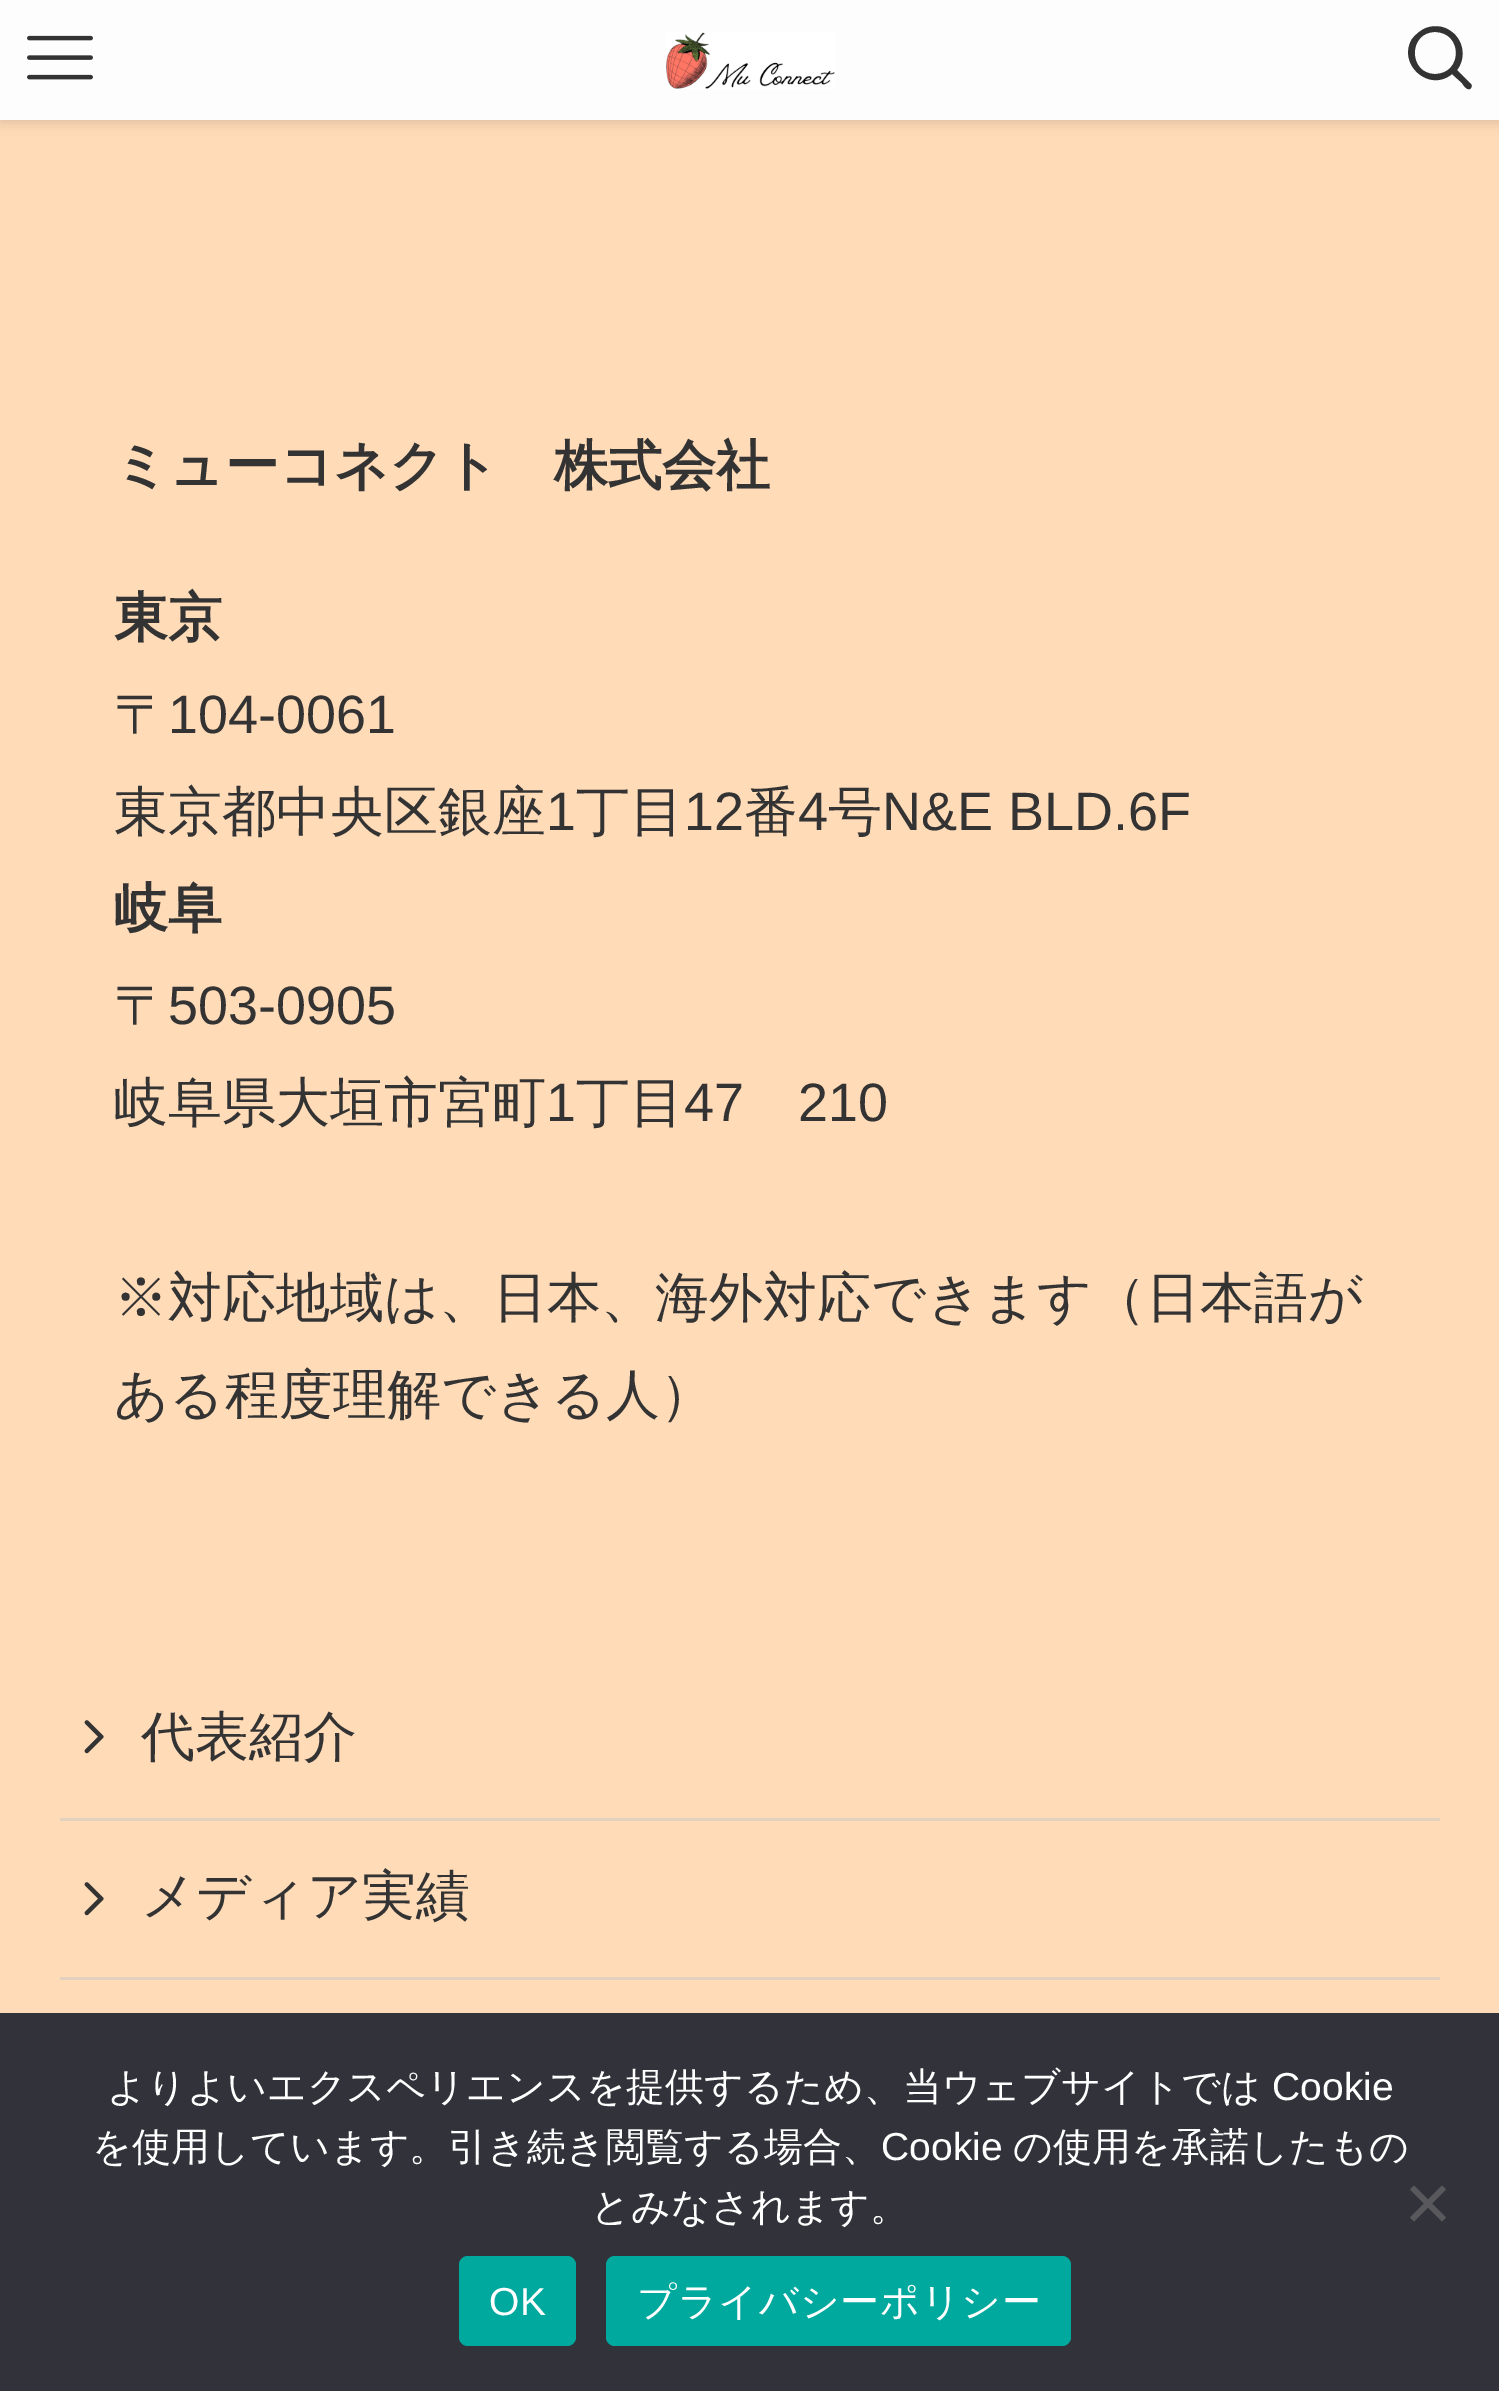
%!PS-Adobe-3.0
%%BoundingBox: 0 0 1499 2391
%%LanguageLevel: 3
%%Pages: 1
%%EndComments
%%BeginProlog
/setalpha { dup .setfillconstantalpha .setstrokeconstantalpha } def
/rrect { 5 dict begin { /r /h /w /y /x } { exch def } forall
  x r add y moveto x w add y 2 copy h add r arct x w add y h add x 1 index r arct
  x y h add x y r arct x y 2 copy exch w add exch r arct closepath end } def
/softshadow { 12 dict begin { /a /b /q /h /w /y /x } { exch def } forall gsave /was 0 def
  9 -2 -9 { dup b mul 4 div /e exch def 1 sub .425 mul 2.718 exch exp 1 add a .99 .min exch div /now exch def
    1 1 now sub 1 was sub div sub setalpha /was now def
    w h .min e 2 mul add 0 gt { x e sub y e sub w e 2 mul add h e 2 mul add
      q e add b .6 mul add w h .min 2 div e add .min 0 .max rrect fill } if } for grestore end } def
/drawimage { 5 dict begin { /h /w /y /x /name } { exch def } forall
  gsave x y translate w h scale
  w h 8 [w 0 0 h 0 0] name (r) file false 3 colorimage grestore end } def
%%EndProlog
%%BeginSetup
<< /PageSize [1499 2391] /PageUsesTransparency true >> setpagedevice
%%EndSetup
%%Page: 1 1
0 .pushpdf14devicefilter
0 2391 translate 1 -1 scale
4 setmiterlimit
1 0.859 0.722 setrgbcolor
0 0 1499 2391 rectfill
0 setgray
0 3 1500 120 0 6 0.12 softshadow
0.992 setgray
0 0 1499 120 rectfill
(images/1.raw) 27 35 66 45 drawimage
(images/2.raw) 666 32 169 57 drawimage
0.2 setgray
newpath 1471 84 moveto 1457 70 lineto 1467 57 1463 38 1449 30 curveto 1443 26 1434 25 1426 28 curveto 1421 30 1416 34 1412 39 curveto 1397 64 1429 93 1452 74 curveto 1462 83 lineto 1463 85 1468 92 1471 88 curveto 1472 86 1472 85 1471 84 curveto closepath 1435 74 moveto 1408 74 1408 32 1435 32 curveto 1463 32 1463 74 1435 74 curveto closepath fill
0.89 0.82 0.753 setrgbcolor
60 1818 1380 3 rectfill
(images/3.raw) 84 1720 20 34 drawimage
60 1977 1380 3 rectfill
(images/3.raw) 84 1882 20 34 drawimage
0.196 0.196 0.227 setrgbcolor
0 2013 1499 378 rectfill
0.349 0.349 0.365 setrgbcolor
newpath 1442 2185.5 moveto 1446 2189.5 lineto 1414 2221.5 lineto 1410 2217.5 lineto closepath fill
newpath 1410 2189.5 moveto 1414 2185.5 lineto 1446 2217.5 lineto 1442 2221.5 lineto closepath fill
0 0.663 0.616 setrgbcolor
459 2256 117 90 9 rrect fill
606 2256 465 90 9 rrect fill
/WenQuanYiZenHei-Bold [54 0 0 -54 0 0] selectfont
0.2 setgray
114 484 moveto (ミューコネクト　株式会社) show
114 636 moveto (東京) show
/WenQuanYiZenHei-Medium [54 0 0 -54 0 0] selectfont
114 733 moveto (〒) show
/LiberationSans-Regular [54 0 0 -54 0 0] selectfont
168 733 moveto (104-0061) show
/WenQuanYiZenHei-Medium [54 0 0 -54 0 0] selectfont
114 830 moveto (東京都中央区銀座) show
/LiberationSans-Regular [54 0 0 -54 0 0] selectfont
546 830 moveto (1) show
/WenQuanYiZenHei-Medium [54 0 0 -54 0 0] selectfont
576 830 moveto (丁目) show
/LiberationSans-Regular [54 0 0 -54 0 0] selectfont
684 830 moveto (12) show
/WenQuanYiZenHei-Medium [54 0 0 -54 0 0] selectfont
744 830 moveto (番) show
/LiberationSans-Regular [54 0 0 -54 0 0] selectfont
798 830 moveto (4) show
/WenQuanYiZenHei-Medium [54 0 0 -54 0 0] selectfont
828 830 moveto (号) show
/LiberationSans-Regular [54 0 0 -54 0 0] selectfont
882 830 moveto (N&E BLD.6F) show
/WenQuanYiZenHei-Bold [54 0 0 -54 0 0] selectfont
114 927 moveto (岐阜) show
/WenQuanYiZenHei-Medium [54 0 0 -54 0 0] selectfont
114 1024 moveto (〒) show
/LiberationSans-Regular [54 0 0 -54 0 0] selectfont
168 1024 moveto (503-0905) show
/WenQuanYiZenHei-Medium [54 0 0 -54 0 0] selectfont
114 1121 moveto (岐阜県大垣市宮町) show
/LiberationSans-Regular [54 0 0 -54 0 0] selectfont
546 1121 moveto (1) show
/WenQuanYiZenHei-Medium [54 0 0 -54 0 0] selectfont
576 1121 moveto (丁目) show
/LiberationSans-Regular [54 0 0 -54 0 0] selectfont
684 1121 moveto (47) show
798 1121 moveto (210) show
/WenQuanYiZenHei-Medium [54 0 0 -54 0 0] selectfont
114 1316 moveto (※対応地域は、日本、海外対応できます（日本語が) show
114 1413 moveto (ある程度理解できる人）) show
141 1755 moveto (代表紹介) show
141 1914 moveto (メディア実績) show
/WenQuanYiZenHei-Medium [39 0 0 -39 0 0] selectfont
1 setgray
107 2100 moveto (よりよいエクスペリエンスを提供するため、当ウェブサイトでは) show
/LiberationSans-Regular [39 0 0 -39 0 0] selectfont
1272 2100 moveto (Cookie) show
/WenQuanYiZenHei-Medium [39 0 0 -39 0 0] selectfont
92 2160 moveto (を使用しています。引き続き閲覧する場合、) show
/LiberationSans-Regular [39 0 0 -39 0 0] selectfont
881 2160 moveto (Cookie) show
/WenQuanYiZenHei-Medium [39 0 0 -39 0 0] selectfont
1013 2160 moveto (の使用を承諾したもの) show
591 2220 moveto (とみなされます。) show
/LiberationSans-Regular [39 0 0 -39 0 0] selectfont
489 2315 moveto 0.75 0 (OK) ashow
/WenQuanYiZenHei-Medium [39 0 0 -39 0 0] selectfont
637 2315 moveto 0.75 0 (プライバシーポリシー) ashow
.poppdf14devicefilter showpage
%%EOF
